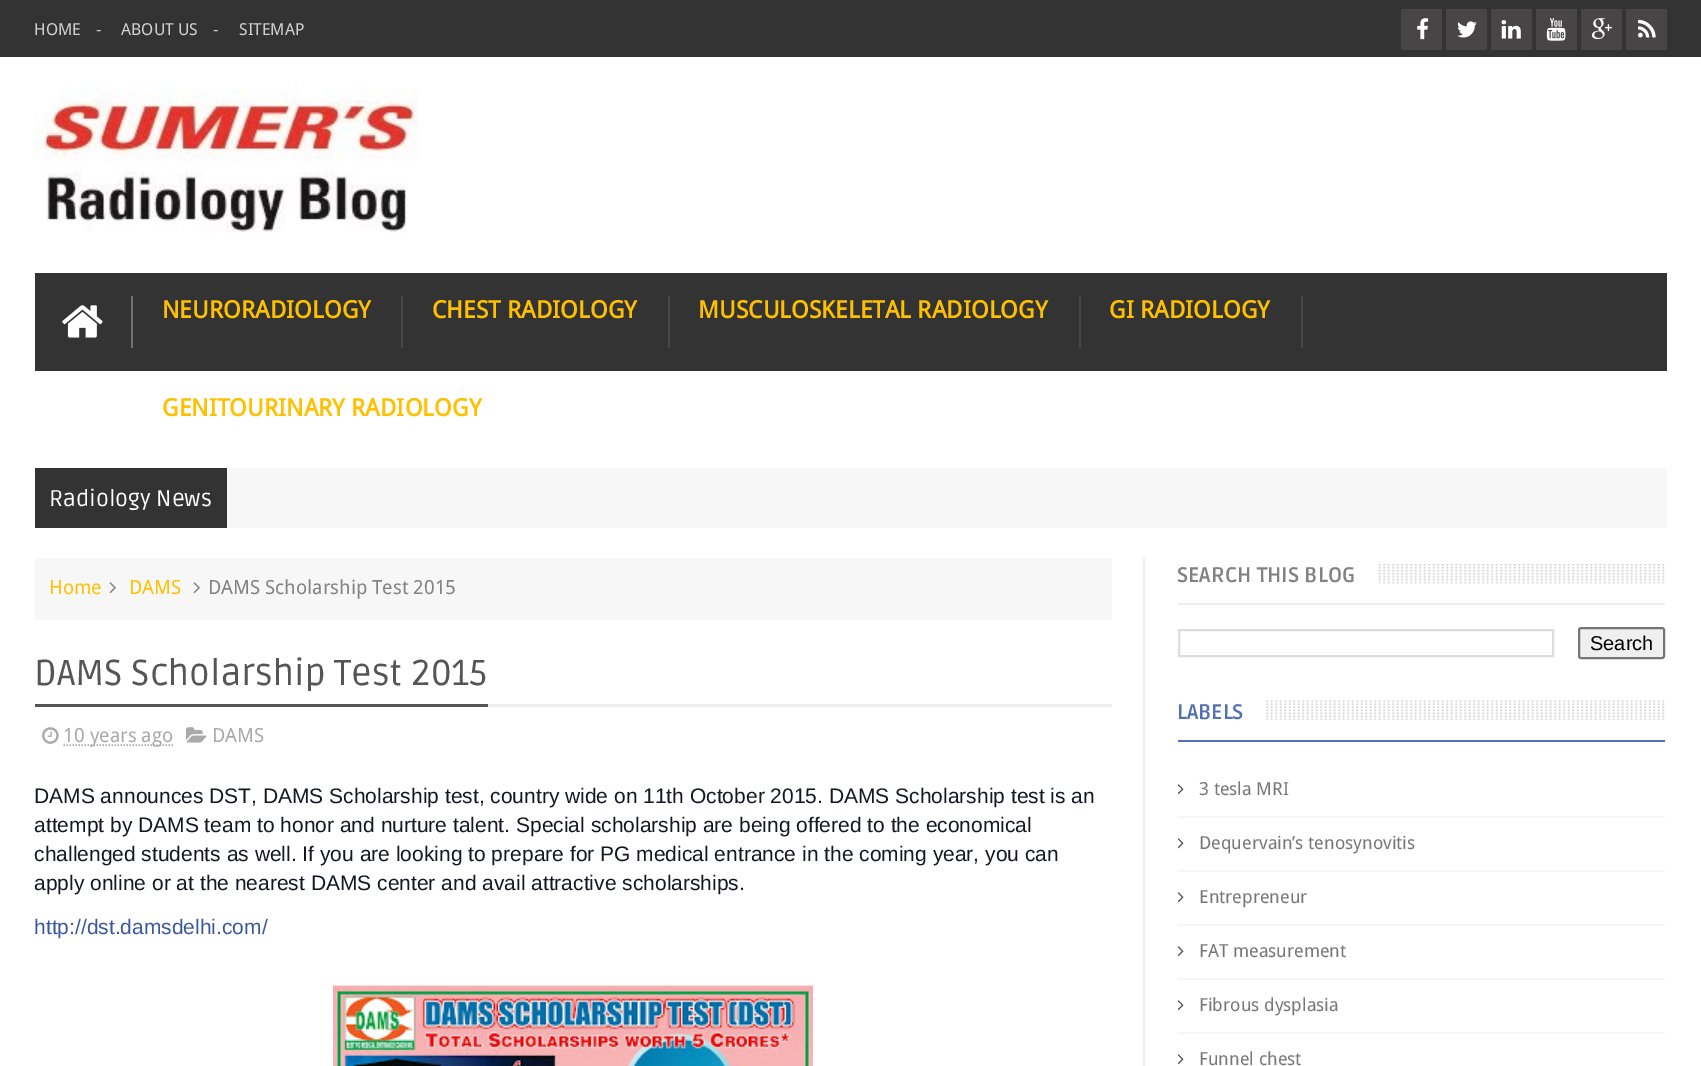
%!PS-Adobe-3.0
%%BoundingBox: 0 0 1701 1066
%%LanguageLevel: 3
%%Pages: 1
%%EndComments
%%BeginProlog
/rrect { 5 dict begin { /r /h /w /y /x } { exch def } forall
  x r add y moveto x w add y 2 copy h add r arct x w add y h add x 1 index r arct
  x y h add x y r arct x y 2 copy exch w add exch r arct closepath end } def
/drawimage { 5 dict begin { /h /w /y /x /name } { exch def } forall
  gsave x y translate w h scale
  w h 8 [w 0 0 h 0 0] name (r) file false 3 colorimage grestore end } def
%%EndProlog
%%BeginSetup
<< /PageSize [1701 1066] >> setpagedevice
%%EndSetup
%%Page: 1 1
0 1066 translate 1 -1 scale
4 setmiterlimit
1 setgray
0 0 1701 1066 rectfill
0.2 setgray
0 0 1701 57 rectfill
0.278 0.271 0.271 setrgbcolor
1401 9 41 41 rectfill
(images/1.raw) 1417 18 12 22 drawimage
1446 9 41 41 rectfill
(images/2.raw) 1457 21 20 17 drawimage
1491 9 41 41 rectfill
(images/3.raw) 1501 20 20 19 drawimage
1536 9 41 41 rectfill
(images/4.raw) 1546 18 20 23 drawimage
1581 9 41 41 rectfill
(images/5.raw) 1591 18 21 22 drawimage
1626 9 41 41 rectfill
(images/6.raw) 1638 19 18 19 drawimage
(images/7.raw) 34 88 385 145 drawimage
0.2 setgray
35 273 1632 98 rectfill
0.439 setgray
131 296 2 52 rectfill
(images/8.raw) 62 305 41 33 drawimage
0.278 setgray
401 296 2 52 rectfill
668 296 2 52 rectfill
1079 296 2 52 rectfill
1301 296 2 52 rectfill
0.969 setgray
227 468 1440 60 rectfill
0.2 setgray
35 468 192 60 rectfill
0.933 setgray
1143 558 2 508 rectfill
0.969 setgray
35 558 1077 62 rectfill
(images/9.raw) 109 582 7 12 drawimage
(images/9.raw) 193 582 7 12 drawimage
0.933 setgray
488 704 624 3 rectfill
0.333 setgray
35 704 453 3 rectfill
(images/10.raw) 42 727 17 17 drawimage
0.667 setgray
1.5 setlinewidth
[1.5 1.5] 0 setdash
newpath 63.5 745 moveto 173.5 745 lineto stroke
(images/11.raw) 186 727 21 16 drawimage
(images/12.raw) 333 985 480 81 drawimage
(images/13.raw) 1177 564 488 20 drawimage
0.933 setgray
1178 603 487 2 rectfill
1 setgray
1178 564 199 20 rectfill
0.867 setgray
2 setlinewidth
[] 0 setdash
1179 630 374 26 rectstroke
0.937 setgray
1579 628 85 30 2 rrect gsave fill grestore
0.463 setgray
stroke
(images/14.raw) 1177 700 488 20 drawimage
0.322 0.443 0.702 setrgbcolor
1178 740 487 2 rectfill
1 setgray
1178 700 86 20 rectfill
0.969 setgray
1178 816 487 2 rectfill
(images/15.raw) 1178 784 6 11 drawimage
1178 870 487 2 rectfill
(images/15.raw) 1178 838 6 11 drawimage
1178 924 487 2 rectfill
(images/15.raw) 1178 892 6 11 drawimage
1178 978 487 2 rectfill
(images/15.raw) 1178 946 6 11 drawimage
1178 1032 487 2 rectfill
(images/15.raw) 1178 1000 6 11 drawimage
(images/15.raw) 1178 1054 6 11 drawimage
/DroidSans-Regular [16.5 0 0 -16.5 0 0] selectfont
0.82 setgray
34 35 moveto (HOME) show
96 35 moveto (-) show
121 35 moveto (ABOUT US) show
213 35 moveto (-) show
239 35 moveto (SITEMAP) show
/DroidSans-Bold [24 0 0 -24 0 0] selectfont
1 0.753 0 setrgbcolor
162 318 moveto (NEURORADIOLOGY) show
432 318 moveto (CHEST RADIOLOGY) show
698 318 moveto (MUSCULOSKELETAL RADIOLOGY) show
1109 318 moveto (GI RADIOLOGY) show
162 416 moveto (GENITOURINARY RADIOLOGY) show
/Ruda-Regular [22.5 0 0 -22.5 0 0] selectfont
1 setgray
49 506 moveto (Radiology News) show
/DroidSans-Regular [19.5 0 0 -19.5 0 0] selectfont
1 0.753 0 setrgbcolor
49 594 moveto (Home) show
129 594 moveto (DAMS) show
0.51 setgray
208 594 moveto (DAMS Scholarship Test 2015) show
/Ruda-Regular [36 0 0 -36 0 0] selectfont
0.333 setgray
34 685 moveto (DAMS Scholarship Test 2015) show
/DroidSans-Regular [19.5 0 0 -19.5 0 0] selectfont
0.667 setgray
63 742 moveto (10 years ago) show
212 742 moveto (DAMS) show
/LiberationSans-Regular [21 0 0 -21 0 0] selectfont
0.078 0.094 0.137 setrgbcolor
34 803 moveto (DAMS announces DST, DAMS Scholarship test, country wide on 11th October 2015. DAMS Scholarship test is an) show
34 832 moveto (attempt by DAMS team to honor and nurture talent. Special scholarship are being offered to the economical) show
34 861 moveto (challenged students as well. If you are looking to prepare for PG medical entrance in the coming year, you can) show
34 890 moveto (apply online or at the nearest DAMS center and avail attractive scholarships.) show
0.231 0.349 0.596 setrgbcolor
34 934 moveto (http://dst.damsdelhi.com/) show
/Ruda-Bold [21 0 0 -21 0 0] selectfont
0.51 setgray
1177 582 moveto (SEARCH THIS BLOG) show
/LiberationSans-Regular [20 0 0 -20 0 0] selectfont
0 setgray
1590 650 moveto (Search) show
/Ruda-Bold [21 0 0 -21 0 0] selectfont
0.322 0.443 0.702 setrgbcolor
1177 719 moveto (LABELS) show
/DroidSans-Regular [18 0 0 -18 0 0] selectfont
0.467 setgray
1199 795 moveto (3 tesla MRI) show
1199 849 moveto (Dequervain’s tenosynovitis) show
1199 903 moveto (Entrepreneur) show
1199 957 moveto (FAT measurement) show
1199 1011 moveto (Fibrous dysplasia) show
1199 1065 moveto (Funnel chest) show
showpage
%%EOF
